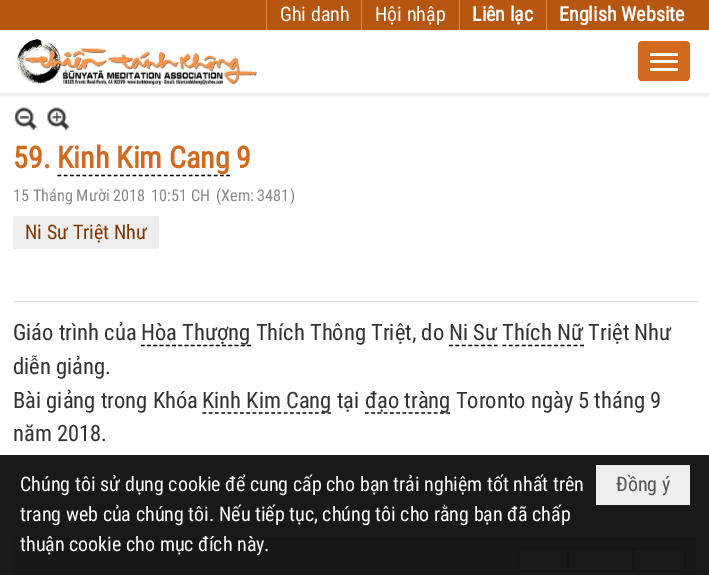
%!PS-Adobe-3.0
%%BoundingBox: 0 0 709 575
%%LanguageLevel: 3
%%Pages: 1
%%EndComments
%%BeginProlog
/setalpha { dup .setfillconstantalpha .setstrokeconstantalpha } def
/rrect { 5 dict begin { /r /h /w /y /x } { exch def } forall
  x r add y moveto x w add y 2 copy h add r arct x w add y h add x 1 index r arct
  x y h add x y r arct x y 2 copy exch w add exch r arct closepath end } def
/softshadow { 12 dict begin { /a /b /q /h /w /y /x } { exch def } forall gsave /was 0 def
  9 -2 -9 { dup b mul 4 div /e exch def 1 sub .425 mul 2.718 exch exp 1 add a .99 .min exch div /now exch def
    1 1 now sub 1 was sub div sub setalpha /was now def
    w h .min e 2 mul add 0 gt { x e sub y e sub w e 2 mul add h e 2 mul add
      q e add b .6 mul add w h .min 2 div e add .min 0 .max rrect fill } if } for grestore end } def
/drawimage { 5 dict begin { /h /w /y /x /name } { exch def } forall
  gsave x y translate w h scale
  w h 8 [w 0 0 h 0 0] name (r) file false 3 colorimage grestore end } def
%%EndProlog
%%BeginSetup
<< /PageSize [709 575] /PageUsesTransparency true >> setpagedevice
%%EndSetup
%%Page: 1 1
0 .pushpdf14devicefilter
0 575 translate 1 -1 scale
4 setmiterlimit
1 setgray
0 0 709 575 rectfill
0.718 0.337 0.067 setrgbcolor
0 0 709 30 rectfill
0.929 0.529 0.243 setrgbcolor
266 0 1 30 rectfill
361 0 1 30 rectfill
459 0 1 30 rectfill
546 0 1 30 rectfill
0 setgray
0 33 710 62 0 3 0.1 softshadow
1 setgray
0 30 709 63 rectfill
(images/1.raw) 15 38 242 48 drawimage
0.824 0.412 0.118 setrgbcolor
638 41 52 40 4 rrect fill
1 setgray
650 53 28 3 1.5 rrect fill
650 60 28 3 1.5 rrect fill
650 68 28 3 1.5 rrect fill
0.882 setgray
13 301 685 1 rectfill
(images/2.raw) 14 107 24 24 drawimage
(images/3.raw) 47 107 23 24 drawimage
0 setgray
1.2 setlinewidth
[3.75 2.5] 0 setdash
newpath 57.5 175.5 moveto 230 175.5 lineto stroke
0.933 setgray
13 216 146 33 2.5 rrect fill
0 setgray
newpath 141 345.5 moveto 251 345.5 lineto stroke
newpath 202.5 413 moveto 331 413 lineto stroke
newpath 365 413 moveto 450 413 lineto stroke
0.976 setgray
13 539 685 36 rectfill
0.851 setgray
13 538 685 1 rectfill
1 setgray
newpath 518.5 548.5 moveto 567.5 548.5 lineto 567.5 570.5 lineto 518.5 570.5 lineto closepath gsave fill grestore
0.835 setgray
1 setlinewidth
[] 0 setdash
stroke
1 setgray
newpath 568.5 548.5 moveto 632.5 548.5 lineto 632.5 570.5 lineto 568.5 570.5 lineto closepath gsave fill grestore
0.835 setgray
stroke
1 setgray
newpath 633.5 548.5 moveto 684.5 548.5 lineto 684.5 570.5 lineto 633.5 570.5 lineto closepath gsave fill grestore
0.835 setgray
stroke
0.9 setalpha
0 setgray
0 455 709 120 rectfill
1 setalpha
0.933 setgray
596 465 94 40 rectfill
/RobotoCondensed-Regular [20 0 0 -20 0 0] selectfont
1 setgray
280 21 moveto (Ghi danh) show
375 21 moveto (Hội nhập) show
/RobotoCondensed-Bold [20 0 0 -20 0 0] selectfont
472 21 moveto (Liên lạc) show
559 21 moveto (English Website) show
/RobotoCondensed-Bold [30 0 0 -30 0 0] selectfont
0.824 0.412 0.118 setrgbcolor
13 168 moveto (59.) show
57 168 moveto (Kinh Kim Cang 9) show
/RobotoCondensed-Regular [16.25 0 0 -16.25 0 0] selectfont
0.533 setgray
13 201 moveto (15 Tháng Mười 2018) show
151 201 moveto (10:51 CH) show
216 201 moveto (\(Xem: 3481\)) show
/RobotoCondensed-Regular [20 0 0 -20 0 0] selectfont
0.506 0.208 0 setrgbcolor
25 239 moveto (Ni Sư Triệt Như) show
/RobotoCondensed-Regular [22.5 0 0 -22.5 0 0] selectfont
0.2 setgray
13 340 moveto (Giáo trình của) show
141 340 moveto (Hòa Thượng Thích Thông Triệt, do Ni Sư Thích Nữ Triệt Như) show
0 setgray
1.2 setlinewidth
[3.75 2.68] 0 setdash
newpath 449 345.5 moveto 497.5 345.5 lineto stroke
[3.75 2.71] 0 setdash
newpath 502.5 345.5 moveto 584 345.5 lineto stroke
0.2 setgray
13 374 moveto (diễn giảng.) show
13 408 moveto (Bài giảng trong Khóa) show
202 408 moveto (Kinh Kim Cang tại) show
365 408 moveto (đạo tràng Toronto ngày 5 tháng 9) show
13 441 moveto (năm 2018.) show
/RobotoCondensed-Regular [20 0 0 -20 0 0] selectfont
1 setgray
20 491 moveto (Chúng tôi sử dụng cookie để cung cấp cho bạn trải nghiệm tốt nhất trên) show
20 521 moveto (trang web của chúng tôi. Nếu tiếp tục, chúng tôi cho rằng bạn đã chấp) show
20 551 moveto (thuận cookie cho mục đích này.) show
0.333 setgray
616 491 moveto (Đồng ý) show
.poppdf14devicefilter showpage
%%EOF
